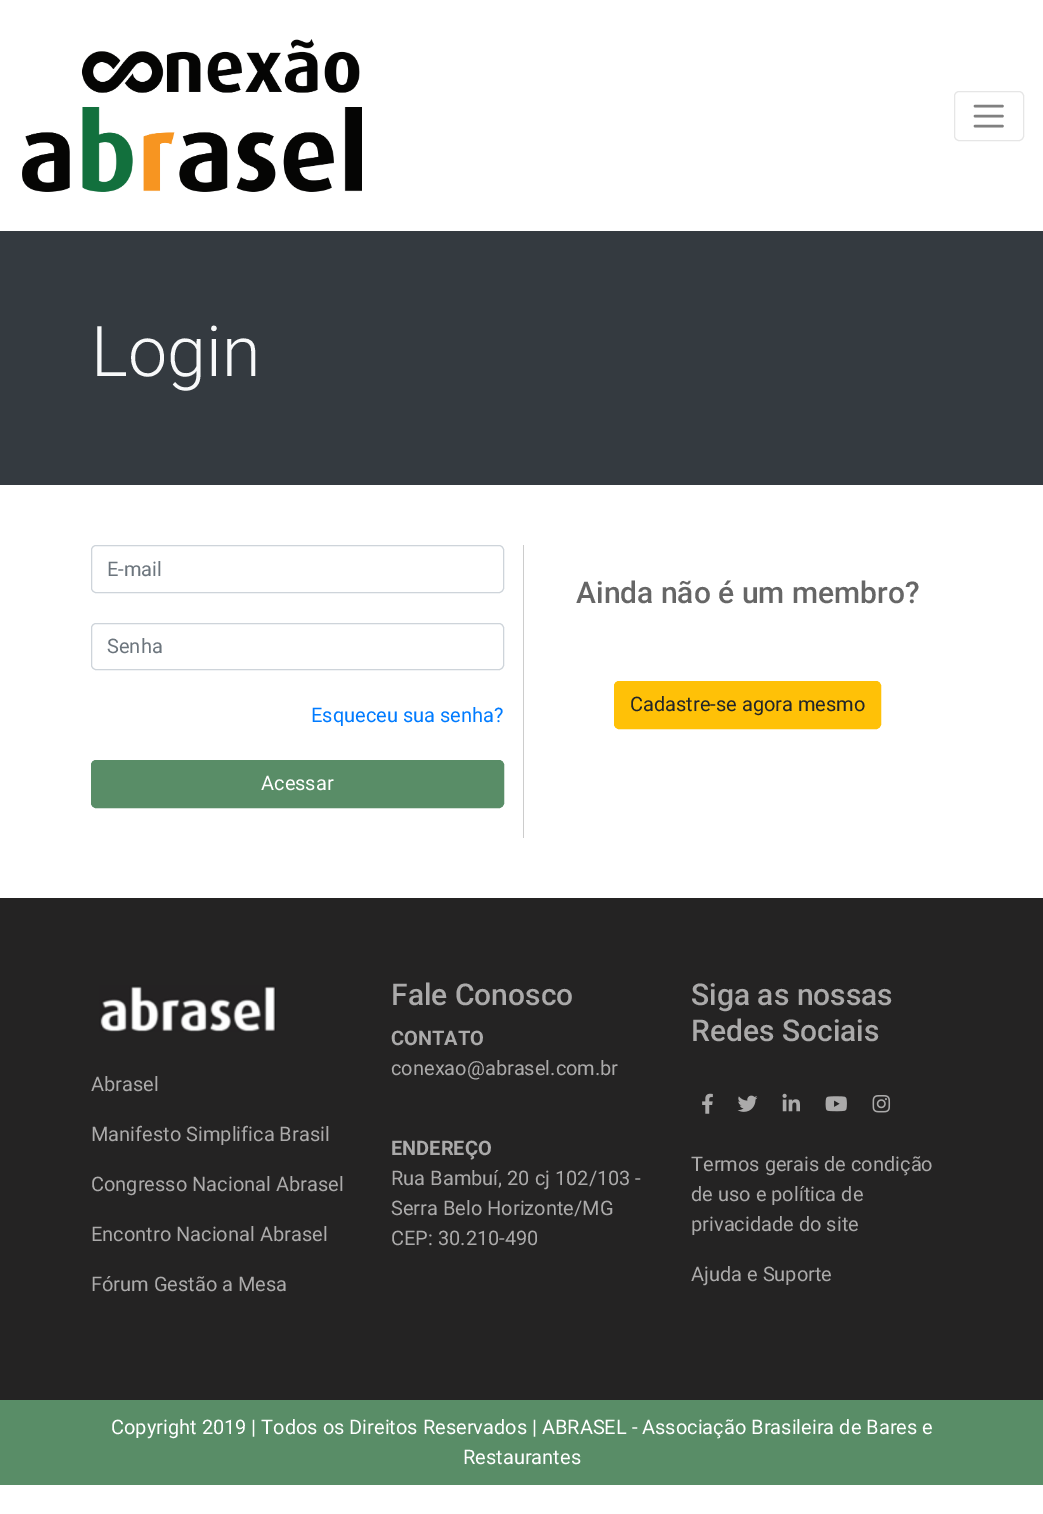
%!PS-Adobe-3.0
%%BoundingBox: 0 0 1043 1514
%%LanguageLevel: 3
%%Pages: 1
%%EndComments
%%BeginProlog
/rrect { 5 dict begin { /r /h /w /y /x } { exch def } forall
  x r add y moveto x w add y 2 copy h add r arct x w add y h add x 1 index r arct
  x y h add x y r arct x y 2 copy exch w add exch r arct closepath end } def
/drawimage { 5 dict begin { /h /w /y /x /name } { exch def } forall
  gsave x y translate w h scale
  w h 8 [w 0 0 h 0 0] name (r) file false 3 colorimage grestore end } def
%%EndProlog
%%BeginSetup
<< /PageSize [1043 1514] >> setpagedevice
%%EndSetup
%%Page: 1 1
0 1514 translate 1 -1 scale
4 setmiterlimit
1 setgray
0 0 1043 1514 rectfill
(images/1.raw) 22 39 340 153 drawimage
0.902 setgray
954.5 91.5 69 49 4.5 rrect stroke
0.502 setgray
2.5 setlinewidth
1 setlinecap
newpath 975 106 moveto 1002.5 106 lineto 975 116 moveto 1002.5 116 lineto 975 126 moveto 1002.5 126 lineto stroke
0.204 0.227 0.251 setrgbcolor
0 231 1043 254 rectfill
0.808 0.831 0.855 setrgbcolor
1 setlinewidth
0 setlinecap
91.5 545.5 412 47 4.5 rrect stroke
91.5 623.5 412 46 4.5 rrect stroke
0.349 0.553 0.404 setrgbcolor
91.5 760.5 412 47 4.5 rrect gsave fill grestore
stroke
0.8 setgray
523 545 1 293 rectfill
1 0.757 0.027 setrgbcolor
614.5 681.5 266 47 4.5 rrect gsave fill grestore
stroke
0.141 0.137 0.137 setrgbcolor
0 898 1043 502 rectfill
(images/2.raw) 99 985 177 47 drawimage
(images/3.raw) 702 1093 11 21 drawimage
(images/4.raw) 737 1095 21 17 drawimage
(images/5.raw) 782 1093 18 19 drawimage
(images/6.raw) 825 1096 22 16 drawimage
(images/7.raw) 872 1095 19 18 drawimage
0.349 0.553 0.404 setrgbcolor
0 1400 1043 85 rectfill
/Roboto-Light [70 0 0 -70 0 0] selectfont
0.973 0.976 0.98 setrgbcolor
91 376 moveto (Login) show
/Roboto-Regular [20 0 0 -20 0 0] selectfont
0.424 0.459 0.49 setrgbcolor
107 576 moveto (E-mail) show
107 653 moveto (Senha) show
0 0.482 1 setrgbcolor
311 722 moveto (Esqueceu sua senha?) show
1 setgray
261 790 moveto (Acessar) show
/Roboto-Medium [30 0 0 -30 0 0] selectfont
0.4 setgray
576 603 moveto (Ainda não é um membro?) show
/Roboto-Regular [20 0 0 -20 0 0] selectfont
0.129 0.145 0.161 setrgbcolor
630 711 moveto (Cadastre-se agora mesmo) show
0.671 0.667 0.667 setrgbcolor
91 1091 moveto (Abrasel) show
91 1141 moveto (Manifesto Simplifica Brasil) show
91 1191 moveto (Congresso Nacional Abrasel) show
91 1241 moveto (Encontro Nacional Abrasel) show
91 1291 moveto (Fórum Gestão a Mesa) show
/Roboto-Medium [30 0 0 -30 0 0] selectfont
391 1005 moveto (Fale Conosco) show
/Roboto-Bold [20 0 0 -20 0 0] selectfont
391 1045 moveto (CONTATO) show
/Roboto-Regular [20 0 0 -20 0 0] selectfont
391 1075 moveto (conexao@abrasel.com.br) show
/Roboto-Bold [20 0 0 -20 0 0] selectfont
391 1155 moveto (ENDEREÇO) show
/Roboto-Regular [20 0 0 -20 0 0] selectfont
391 1185 moveto (Rua Bambuí, 20 cj 102/103 -) show
391 1215 moveto (Serra Belo Horizonte/MG) show
391 1245 moveto (CEP: 30.210-490) show
/Roboto-Medium [30 0 0 -30 0 0] selectfont
691 1005 moveto (Siga as nossas) show
691 1041 moveto (Redes Sociais) show
/Roboto-Regular [20 0 0 -20 0 0] selectfont
691 1171 moveto (Termos gerais de condição) show
691 1201 moveto (de uso e política de) show
691 1231 moveto (privacidade do site) show
691 1281 moveto (Ajuda e Suporte) show
1 setgray
111 1434 moveto (Copyright 2019 | Todos os Direitos Reservados | ABRASEL - Associação Brasileira de Bares e) show
463 1464 moveto (Restaurantes) show
showpage
%%EOF
